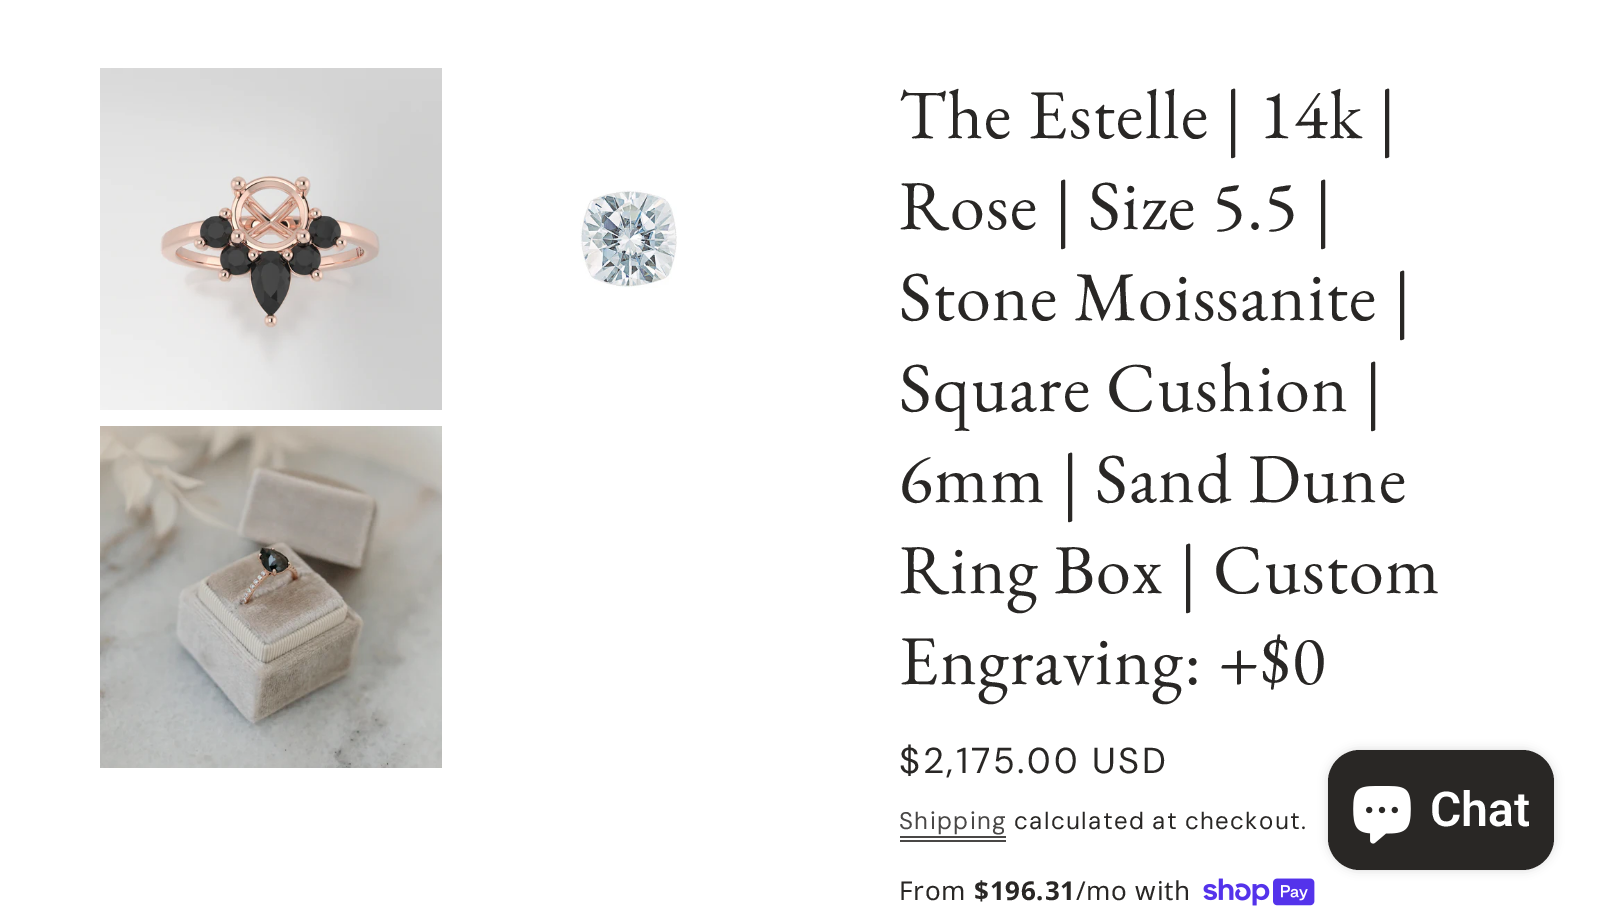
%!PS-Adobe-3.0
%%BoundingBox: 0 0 1597 911
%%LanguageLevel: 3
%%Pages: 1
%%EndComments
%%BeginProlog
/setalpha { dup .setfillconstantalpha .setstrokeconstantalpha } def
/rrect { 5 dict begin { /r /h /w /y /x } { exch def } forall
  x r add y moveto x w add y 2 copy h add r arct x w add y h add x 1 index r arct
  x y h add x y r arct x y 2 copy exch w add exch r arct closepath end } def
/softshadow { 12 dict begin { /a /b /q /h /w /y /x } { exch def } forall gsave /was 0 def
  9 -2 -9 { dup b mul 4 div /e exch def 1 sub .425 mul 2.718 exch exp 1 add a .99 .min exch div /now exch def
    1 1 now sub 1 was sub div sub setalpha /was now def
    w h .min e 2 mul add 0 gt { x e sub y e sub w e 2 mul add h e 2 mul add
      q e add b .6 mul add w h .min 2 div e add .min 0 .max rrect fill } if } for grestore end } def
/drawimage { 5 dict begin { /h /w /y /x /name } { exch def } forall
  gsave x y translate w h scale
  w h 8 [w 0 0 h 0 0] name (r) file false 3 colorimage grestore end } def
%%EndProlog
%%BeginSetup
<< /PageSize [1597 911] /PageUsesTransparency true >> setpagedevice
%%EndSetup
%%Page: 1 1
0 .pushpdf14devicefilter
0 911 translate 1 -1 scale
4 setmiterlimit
1 setgray
0 0 1597 911 rectfill
(images/1.raw) 100 68 342 342 drawimage
(images/2.raw) 580 190 97 98 drawimage
(images/3.raw) 100 426 342 342 drawimage
0.286 0.278 0.275 setrgbcolor
900 840 106 2 rectfill
900 836 106 2 rectfill
(images/4.raw) 1203 878 112 28 drawimage
0 setgray
1328 750 226 120 32 5 0.15 softshadow
0.161 0.153 0.145 setrgbcolor
1328 750 226 120 32 rrect fill
(images/5.raw) 1353 786 58 58 drawimage
/EBGaramond-Regular [70 0 0 -70 0 0] selectfont
899 138 moveto 1.25 0 (The Estelle | 14k |) ashow
899 229 moveto 1.25 0 (Rose | Size 5.5 |) ashow
899 320 moveto 1.25 0 (Stone Moissanite |) ashow
899 411 moveto 1.25 0 (Square Cushion |) ashow
899 502 moveto 1.25 0 (6mm | Sand Dune) ashow
899 593 moveto 1.25 0 (Ring Box | Custom) ashow
899 684 moveto 1.25 0 (Engraving: +$0) ashow
/DMSans-Regular [36 0 0 -36 0 0] selectfont
899 773 moveto 2.6 0 ($2,175.00 USD) ashow
/DMSans-Regular [24 0 0 -24 0 0] selectfont
0.286 0.278 0.275 setrgbcolor
899 829 moveto 1.4 0 (Shipping) ashow
0.161 0.153 0.145 setrgbcolor
1014 829 moveto -1 0 32 1.4 0 (calculated at checkout.) awidthshow
/NotoSans-Regular [26 0 0 -26 0 0] selectfont
899 900 moveto 0.75 0 (From) ashow
/NotoSans-Bold [26 0 0 -26 0 0] selectfont
974 900 moveto 0.75 0 ($196.31) ashow
/NotoSans-Regular [26 0 0 -26 0 0] selectfont
1076 900 moveto 0.75 0 (/mo with) ashow
/Roboto-SemiBold [48 0 0 -48 0 0] selectfont
1 setgray
1430 826 moveto (Chat) show
.poppdf14devicefilter showpage
%%EOF
